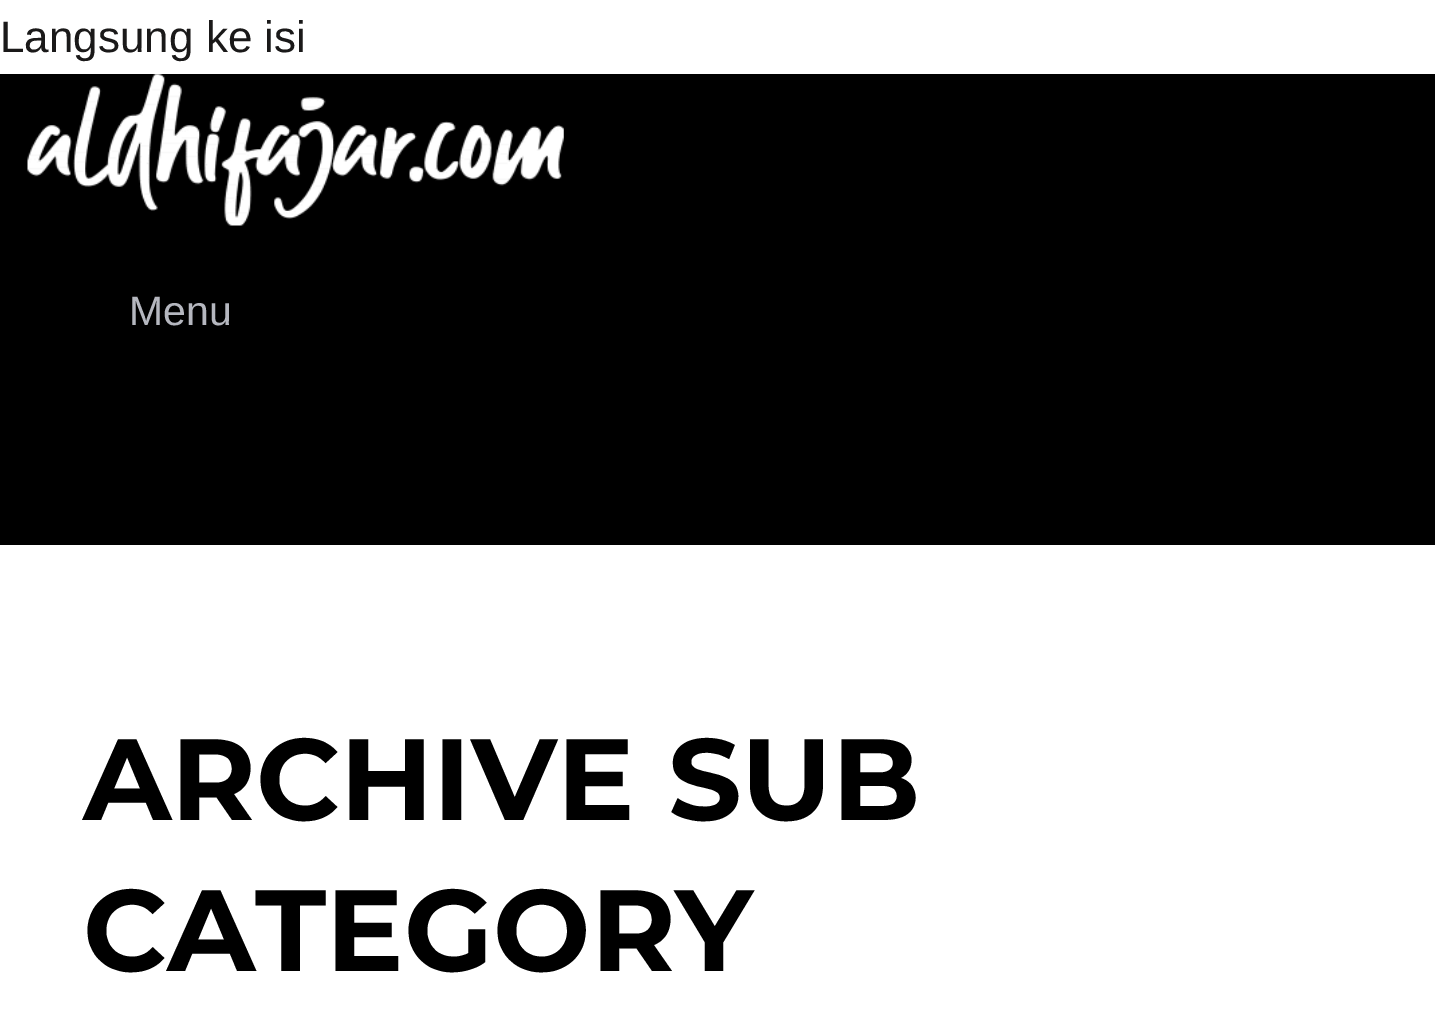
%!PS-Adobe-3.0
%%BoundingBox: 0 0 1435 1013
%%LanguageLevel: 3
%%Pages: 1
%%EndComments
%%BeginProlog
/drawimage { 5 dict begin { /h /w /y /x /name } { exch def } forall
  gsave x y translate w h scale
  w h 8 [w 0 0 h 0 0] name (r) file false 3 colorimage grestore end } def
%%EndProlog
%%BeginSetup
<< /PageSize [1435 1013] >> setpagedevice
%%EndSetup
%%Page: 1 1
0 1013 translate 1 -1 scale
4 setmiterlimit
1 setgray
0 0 1435 1013 rectfill
0 setgray
0 74 1435 471 rectfill
(images/1.raw) 27 74 537 152 drawimage
/LiberationSans-Regular [44 0 0 -44 0 0] selectfont
0.102 0.098 0.098 setrgbcolor
0 52 moveto (Langsung ke isi) show
/LiberationSans-Regular [41 0 0 -41 0 0] selectfont
0.71 0.718 0.749 setrgbcolor
129 325 moveto (Menu) show
/Montserrat-Bold [115.5 0 0 -115.5 0 0] selectfont
0 setgray
83 820 moveto (ARCHIVE SUB) show
83 971 moveto (CATEGORY) show
showpage
%%EOF
